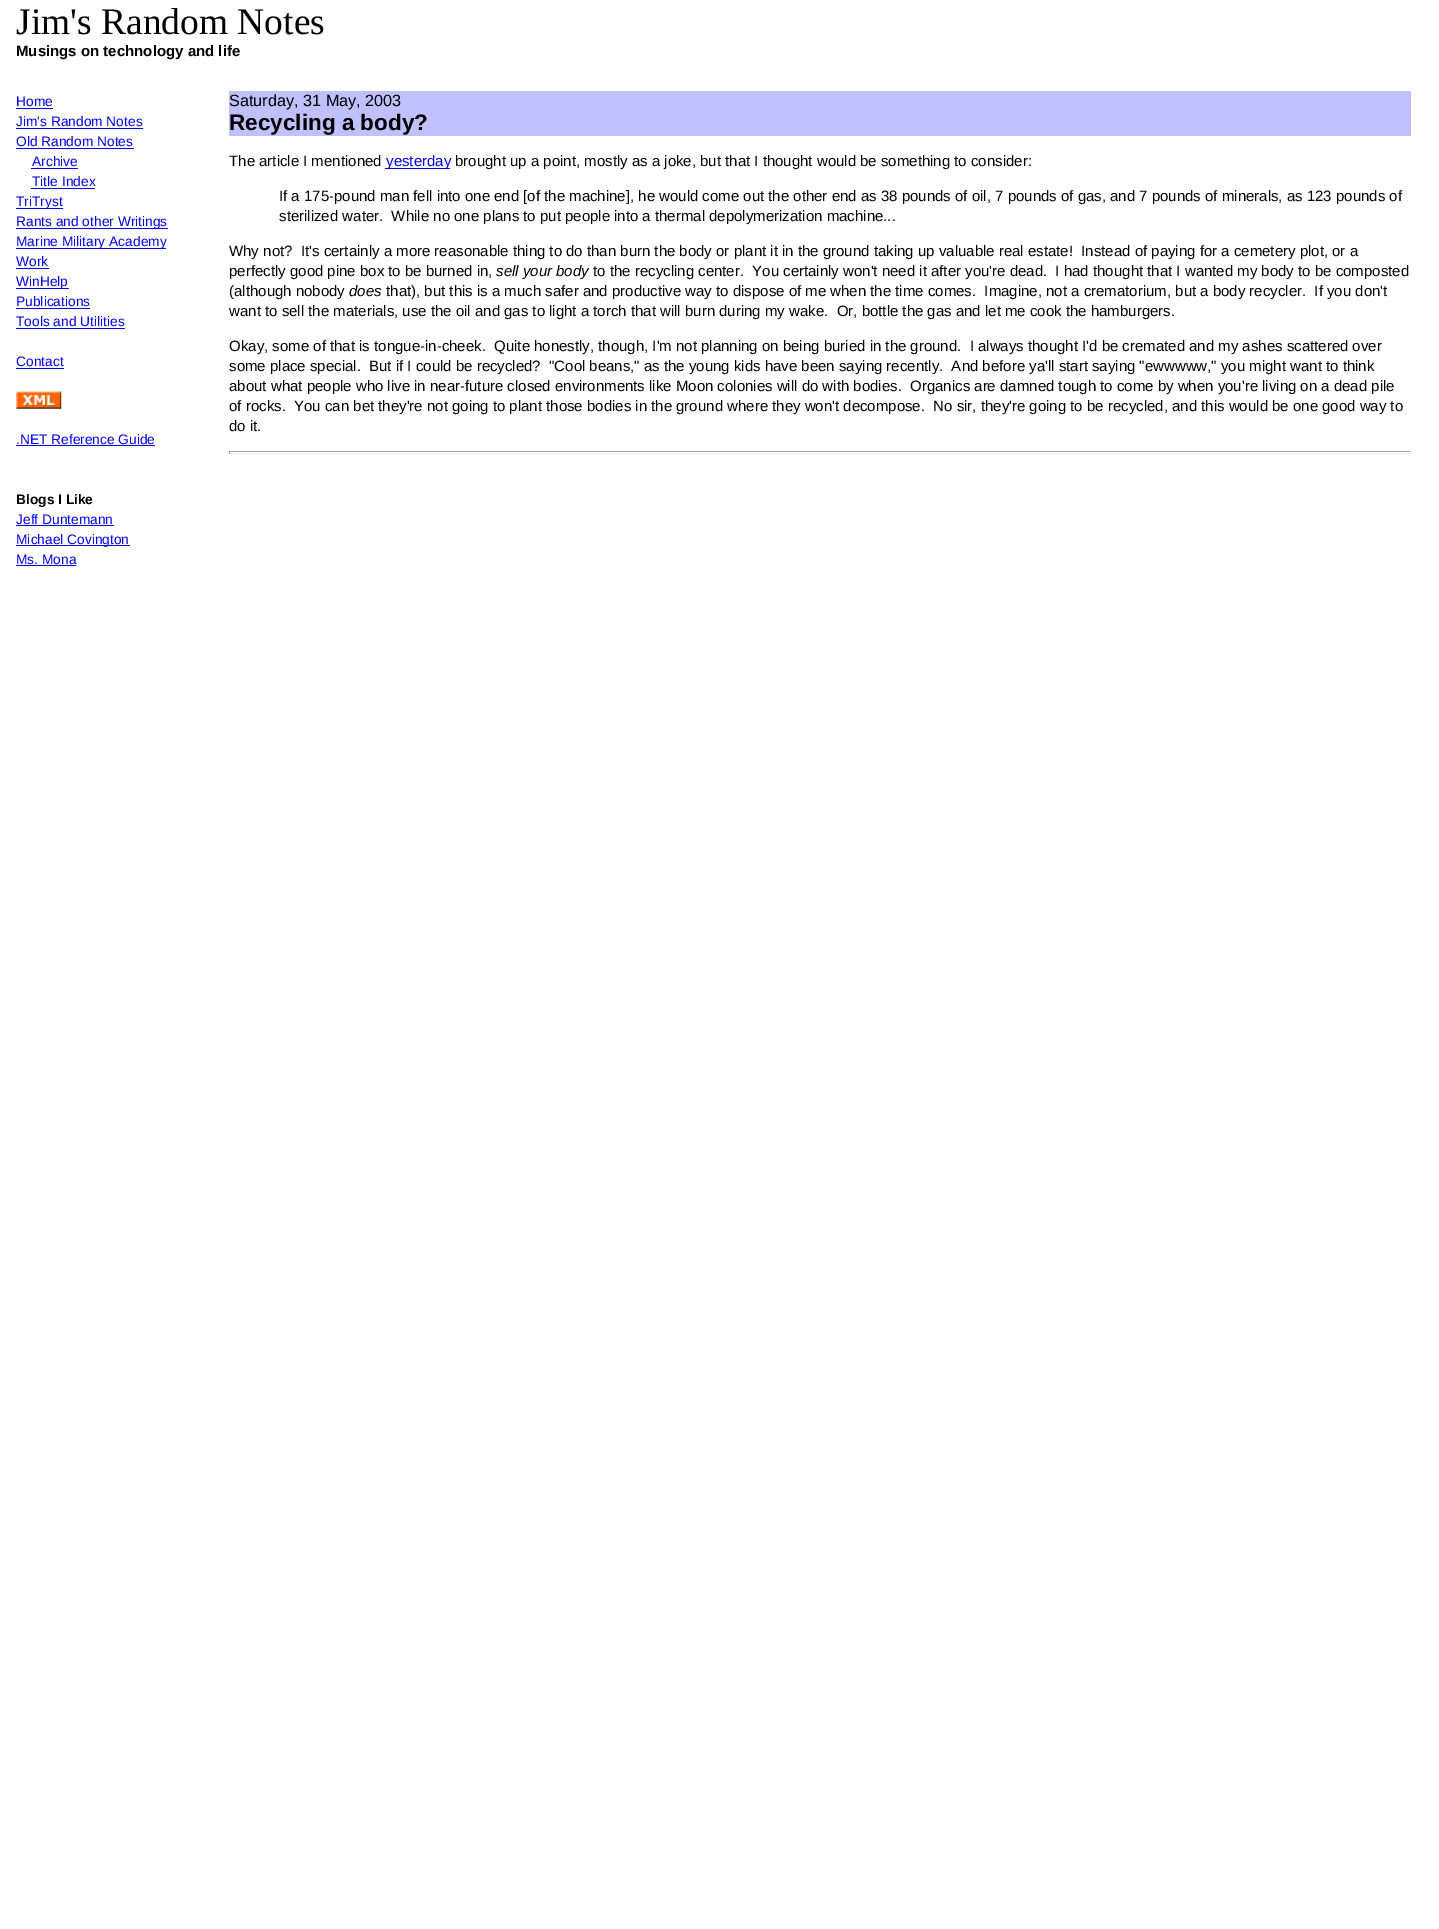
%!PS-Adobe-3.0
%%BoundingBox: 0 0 1439 1929
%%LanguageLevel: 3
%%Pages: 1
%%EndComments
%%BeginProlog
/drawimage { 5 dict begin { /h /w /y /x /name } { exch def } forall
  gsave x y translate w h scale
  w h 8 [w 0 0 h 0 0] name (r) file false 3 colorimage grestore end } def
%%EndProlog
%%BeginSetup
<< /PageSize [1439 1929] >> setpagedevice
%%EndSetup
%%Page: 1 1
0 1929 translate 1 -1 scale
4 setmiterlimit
1 setgray
0 0 1439 1929 rectfill
0 0 0.933 setrgbcolor
16 108 37 1 rectfill
16 128 127 1 rectfill
16 148 118 1 rectfill
31 168 47 1 rectfill
31 188 64 1 rectfill
16 208 47 1 rectfill
16 228 152 1 rectfill
16 248 150 1 rectfill
16 268 33 1 rectfill
16 288 53 1 rectfill
16 308 74 1 rectfill
16 328 109 1 rectfill
16 368 48 1 rectfill
(images/1.raw) 16 391 46 18 drawimage
16 445 139 1 rectfill
16 525 98 1 rectfill
16 545 114 1 rectfill
16 565 60 1 rectfill
0.753 0.753 1 setrgbcolor
229 91 1182 45 rectfill
0 0 0.933 setrgbcolor
385 168 65 1 rectfill
0.624 setgray
229 451 1182 1 rectfill
0.933 setgray
1410 451 1 3 rectfill
229 453 1182 1 rectfill
0.624 setgray
229 451 1 3 rectfill
/LiberationSerif-Regular [37.5 0 0 -37.5 0 0] selectfont
0 setgray
16 34 moveto (Jim's Random Notes) show
/LiberationSans-Bold [15 0 0 -15 0 0] selectfont
16 56 moveto (Musings on technology and life) show
/LiberationSans-Regular [13.75 0 0 -13.75 0 0] selectfont
0 0 0.933 setrgbcolor
16 106 moveto (Home) show
16 126 moveto (Jim's Random Notes) show
16 146 moveto (Old Random Notes) show
32 166 moveto (Archive) show
32 186 moveto (Title Index) show
16 206 moveto (TriTryst) show
16 226 moveto (Rants and other Writings) show
16 246 moveto (Marine Military Academy) show
16 266 moveto (Work) show
16 286 moveto (WinHelp) show
16 306 moveto (Publications) show
16 326 moveto (Tools and Utilities) show
16 366 moveto (Contact) show
16 444 moveto (.NET Reference Guide) show
/LiberationSans-Bold [13.75 0 0 -13.75 0 0] selectfont
0 setgray
16 504 moveto (Blogs I Like) show
/LiberationSans-Regular [13.75 0 0 -13.75 0 0] selectfont
0 0 0.933 setrgbcolor
16 524 moveto (Jeff Duntemann) show
16 544 moveto (Michael Covington) show
16 564 moveto (Ms. Mona) show
/LiberationSans-Regular [16.25 0 0 -16.25 0 0] selectfont
0 setgray
229 106 moveto (Saturday, 31 May, 2003) show
/LiberationSans-Bold [22.5 0 0 -22.5 0 0] selectfont
229 130 moveto (Recycling a body?) show
/LiberationSans-Regular [15 0 0 -15 0 0] selectfont
229 166 moveto (The article I mentioned) show
0 0 0.933 setrgbcolor
386 166 moveto (yesterday) show
0 setgray
455 166 moveto (brought up a point, mostly as a joke, but that I thought would be something to consider:) show
279 201 moveto (If a 175-pound man fell into one end [of the machine], he would come out the other end as 38 pounds of oil, 7 pounds of gas, and 7 pounds of minerals, as 123 pounds of) show
279 221 moveto (sterilized water.  While no one plans to put people into a thermal depolymerization machine...) show
229 256 moveto (Why not?  It's certainly a more reasonable thing to do than burn the body or plant it in the ground taking up valuable real estate!  Instead of paying for a cemetery plot, or a) show
229 276 moveto (perfectly good pine box to be burned in,) show
/LiberationSans-Italic [15 0 0 -15 0 0] selectfont
496 276 moveto (sell your body) show
/LiberationSans-Regular [15 0 0 -15 0 0] selectfont
593 276 moveto (to the recycling center.  You certainly won't need it after you're dead.  I had thought that I wanted my body to be composted) show
229 296 moveto (\(although nobody) show
/LiberationSans-Italic [15 0 0 -15 0 0] selectfont
349 296 moveto (does) show
/LiberationSans-Regular [15 0 0 -15 0 0] selectfont
386 296 moveto (that\), but this is a much safer and productive way to dispose of me when the time comes.  Imagine, not a crematorium, but a body recycler.  If you don't) show
229 316 moveto (want to sell the materials, use the oil and gas to light a torch that will burn during my wake.  Or, bottle the gas and let me cook the hamburgers.) show
229 351 moveto (Okay, some of that is tongue-in-cheek.  Quite honestly, though, I'm not planning on being buried in the ground.  I always thought I'd be cremated and my ashes scattered over) show
229 371 moveto (some place special.  But if I could be recycled?  "Cool beans," as the young kids have been saying recently.  And before ya'll start saying "ewwwww," you might want to think) show
229 391 moveto (about what people who live in near-future closed environments like Moon colonies will do with bodies.  Organics are damned tough to come by when you're living on a dead pile) show
229 411 moveto (of rocks.  You can bet they're not going to plant those bodies in the ground where they won't decompose.  No sir, they're going to be recycled, and this would be one good way to) show
229 431 moveto (do it.) show
showpage
%%EOF
